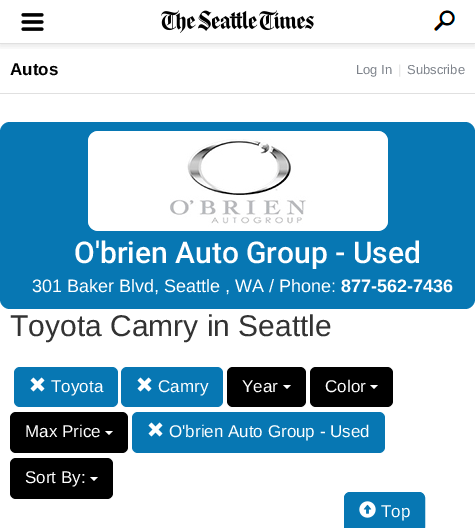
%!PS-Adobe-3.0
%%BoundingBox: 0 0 475 528
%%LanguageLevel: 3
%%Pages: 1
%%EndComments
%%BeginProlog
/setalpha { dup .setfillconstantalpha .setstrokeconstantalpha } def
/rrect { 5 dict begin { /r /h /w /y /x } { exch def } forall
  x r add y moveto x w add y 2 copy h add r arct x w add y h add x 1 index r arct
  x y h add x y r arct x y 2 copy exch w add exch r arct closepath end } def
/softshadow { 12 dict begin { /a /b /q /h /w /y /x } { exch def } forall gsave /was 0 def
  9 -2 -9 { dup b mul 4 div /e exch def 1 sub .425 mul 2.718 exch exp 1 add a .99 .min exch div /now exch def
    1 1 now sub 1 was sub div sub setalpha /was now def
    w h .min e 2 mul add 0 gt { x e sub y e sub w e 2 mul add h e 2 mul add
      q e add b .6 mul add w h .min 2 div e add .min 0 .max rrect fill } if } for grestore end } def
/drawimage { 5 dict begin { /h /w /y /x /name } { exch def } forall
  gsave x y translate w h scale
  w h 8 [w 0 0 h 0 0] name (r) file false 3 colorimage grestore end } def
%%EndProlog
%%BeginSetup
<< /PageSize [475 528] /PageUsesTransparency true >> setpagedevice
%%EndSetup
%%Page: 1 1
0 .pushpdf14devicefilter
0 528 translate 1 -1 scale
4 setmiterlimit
1 setgray
0 0 475 528 rectfill
gsave
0 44 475 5 rectclip
0 setgray
0 2 475 44 0 3.5 0.1 softshadow
grestore
0.878 setgray
0 43 475 1 rectfill
(images/1.raw) 21 13 23 18 drawimage
(images/2.raw) 161 10 153 23 drawimage
(images/3.raw) 434 10 21 21 drawimage
0 93 475 1 rectfill
0.027 0.467 0.702 setrgbcolor
0 122 475 187 10 rrect fill
1 setgray
88 131 300 100 10 rrect fill
(images/4.raw) 88 131 300 100 drawimage
0.027 0.467 0.702 setrgbcolor
14 367 104 40 6 rrect fill
(images/5.raw) 30 377 15 15 drawimage
121 367 102 40 6 rrect fill
(images/5.raw) 137 377 15 15 drawimage
0 setgray
227 367 79 40 6 rrect fill
1 setgray
newpath 283 385 moveto 291 385 lineto 287 389 lineto closepath fill
0 setgray
310 367 83 40 6 rrect fill
1 setgray
newpath 370 385 moveto 378 385 lineto 374 389 lineto closepath fill
0 setgray
10 412 118 41 6 rrect fill
1 setgray
newpath 105 431 moveto 113 431 lineto 109 435 lineto closepath fill
0.027 0.467 0.702 setrgbcolor
132 412 253 41 6 rrect fill
(images/5.raw) 148 422 15 15 drawimage
0 setgray
10 458 103 41 6 rrect fill
1 setgray
newpath 90 477 moveto 98 477 lineto 94 481 lineto closepath fill
0.027 0.467 0.702 setrgbcolor
344.5 492.5 80 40 5.5 rrect gsave fill grestore
stroke
(images/6.raw) 359 501 17 17 drawimage
/LiberationSans-Bold [17 0 0 -17 0 0] selectfont
0 setgray
10 75 moveto (Autos) show
/LiberationSans-Regular [13 0 0 -13 0 0] selectfont
0.494 0.514 0.545 setrgbcolor
356 74 moveto (Log In) show
0.878 setgray
398 74 moveto (|) show
0.494 0.514 0.545 setrgbcolor
407 74 moveto (Subscribe) show
/Roboto-Medium [30 0 0 -30 0 0] selectfont
1 setgray
74 263 moveto (O'brien Auto Group - Used) show
/LiberationSans-Regular [18 0 0 -18 0 0] selectfont
32 292 moveto (301 Baker Blvd, Seattle , WA / Phone:) show
/LiberationSans-Bold [18 0 0 -18 0 0] selectfont
341 292 moveto (877-562-7436) show
/LiberationSans-Regular [30 0 0 -30 0 0] selectfont
0.2 setgray
10 336 moveto (Toyota Camry in Seattle) show
/LiberationSans-Regular [17 0 0 -17 0 0] selectfont
1 setgray
51 392 moveto (Toyota) show
158 392 moveto (Camry) show
242 392 moveto (Year) show
325 392 moveto (Color) show
25 437 moveto (Max Price) show
169 437 moveto (O'brien Auto Group - Used) show
25 483 moveto (Sort By:) show
381 517 moveto (Top) show
.poppdf14devicefilter showpage
%%EOF
